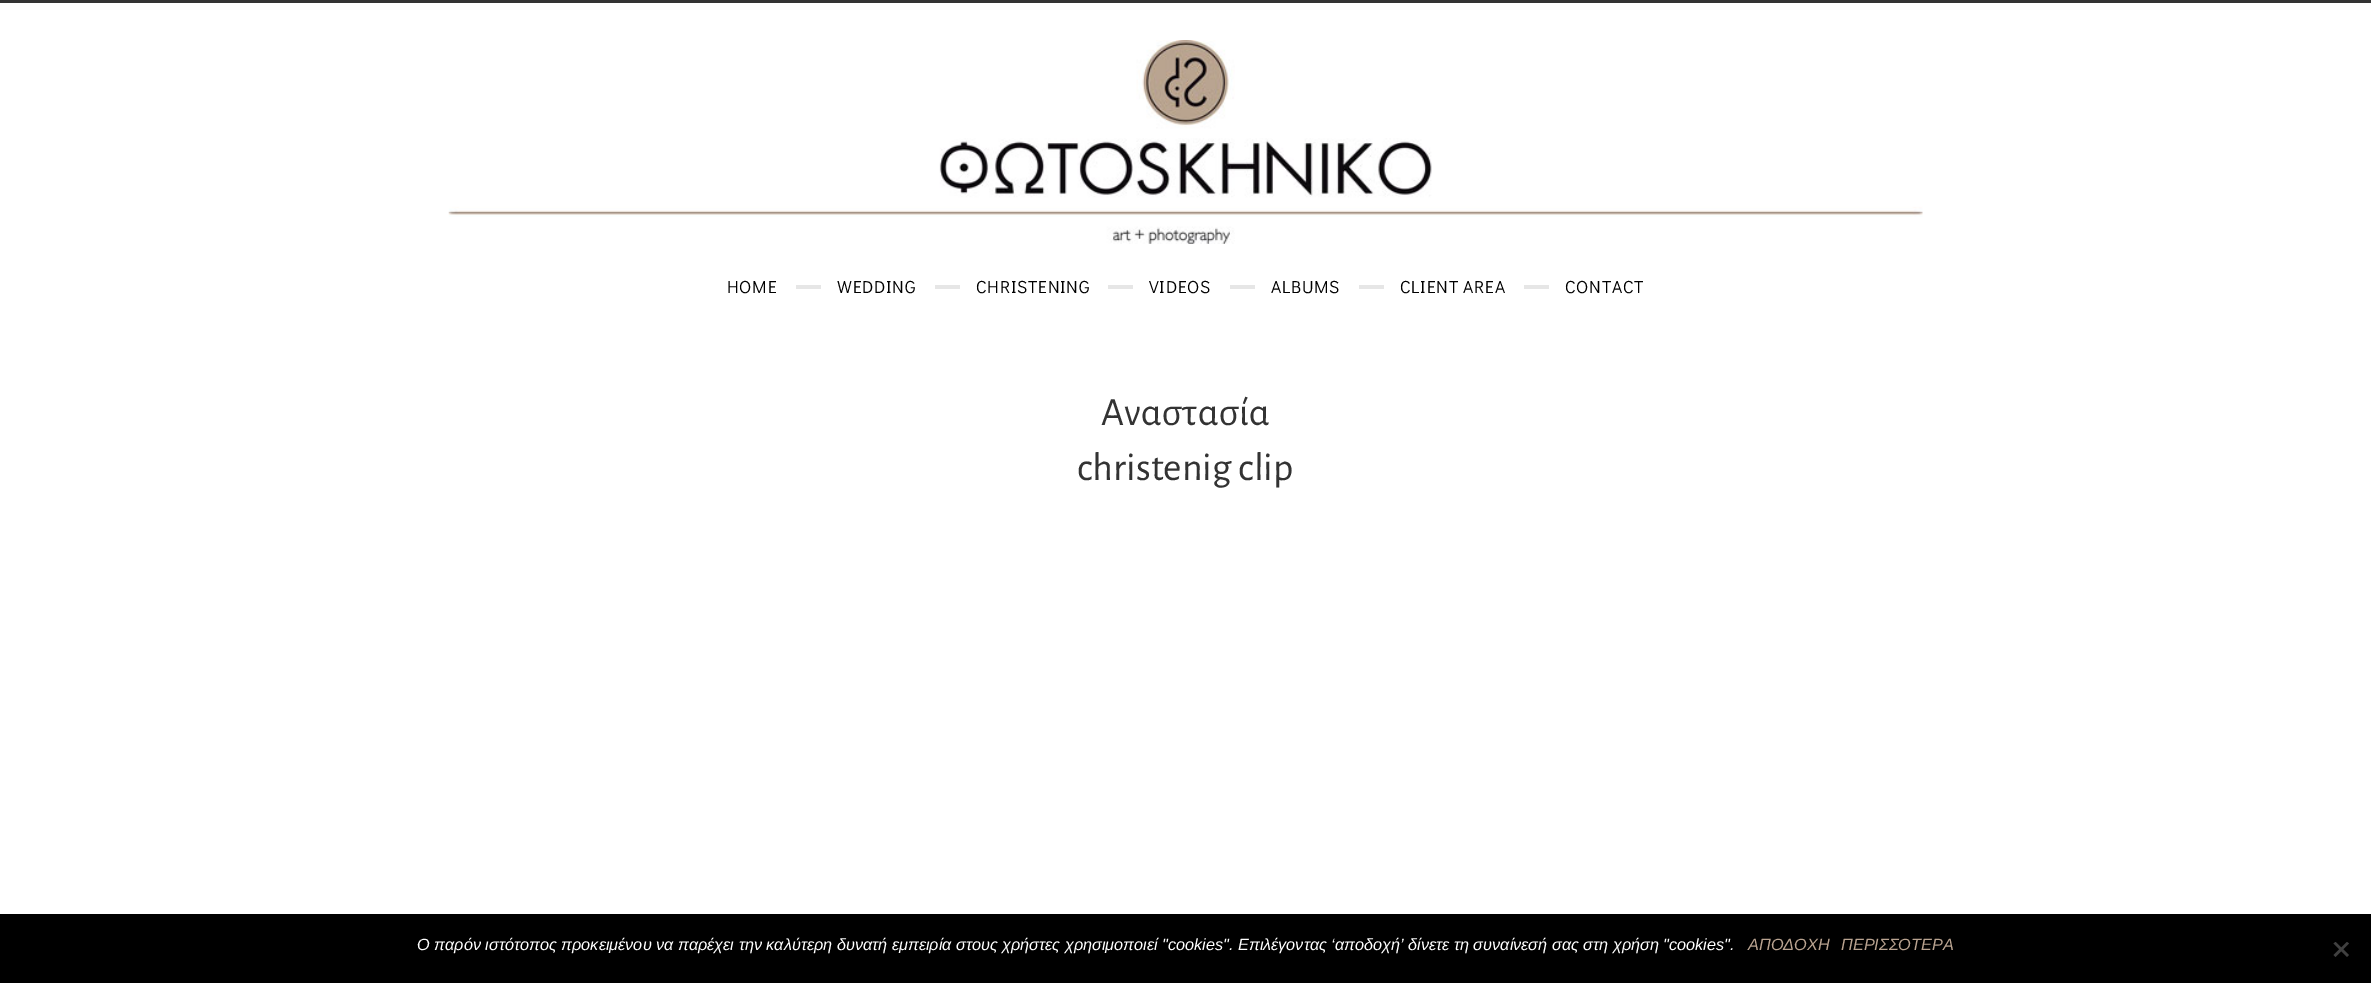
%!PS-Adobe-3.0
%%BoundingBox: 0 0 2371 983
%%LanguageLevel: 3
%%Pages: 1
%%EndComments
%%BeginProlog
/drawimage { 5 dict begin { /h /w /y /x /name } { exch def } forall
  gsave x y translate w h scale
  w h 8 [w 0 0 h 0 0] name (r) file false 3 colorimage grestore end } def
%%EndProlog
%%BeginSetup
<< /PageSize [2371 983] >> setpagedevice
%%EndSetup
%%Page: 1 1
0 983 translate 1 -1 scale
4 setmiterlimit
1 setgray
0 0 2371 983 rectfill
0.2 setgray
0 0 2371 3 rectfill
(images/1.raw) 448 40 1475 204 drawimage
0.902 setgray
796 285 25 4 rectfill
935 285 25 4 rectfill
1108 285 25 4 rectfill
1230 285 25 4 rectfill
1359 285 25 4 rectfill
1524 285 25 4 rectfill
0 setgray
0 914 2371 69 rectfill
0.251 setgray
newpath 2347 942 moveto 2349 943.5 lineto 2335.5 957 lineto 2333.5 955 lineto closepath fill
newpath 2333.5 943.5 moveto 2335.5 942 lineto 2349 955 lineto 2347 957 lineto closepath fill
/DidactGothic-Regular [17.5 0 0 -17.5 0 0] selectfont
0 setgray
727 293 moveto 0.75 0 (HOME) ashow
837 293 moveto 0.75 0 (WEDDING) ashow
976 293 moveto 0.75 0 (CHRISTENING) ashow
1149 293 moveto 0.75 0 (VIDEOS) ashow
1271 293 moveto 0.75 0 (ALBUMS) ashow
1400 293 moveto 0.75 0 (CLIENT AREA) ashow
1565 293 moveto 0.75 0 (CONTACT) ashow
/AlegreyaSans-Regular [40 0 0 -40 0 0] selectfont
0.2 setgray
1101 425 moveto (Αναστασία) show
1077 480 moveto (christenig clip) show
/LiberationSans-Italic [16.25 0 0 -16.25 0 0] selectfont
1 setgray
417 950 moveto (Ο παρόν ιστότοπος προκειμένου να παρέχει την καλύτερη δυνατή εμπειρία στους χρήστες χρησιμοποιεί "cookies". Επιλέγοντας ‘αποδοχή’ δίνετε τη συναίνεσή σας στη χρήση "cookies".) show
0.725 0.639 0.565 setrgbcolor
1748 950 moveto (ΑΠΟΔΟΧΗ) show
1841 950 moveto (ΠΕΡΙΣΣΟΤΕΡΑ) show
showpage
%%EOF
